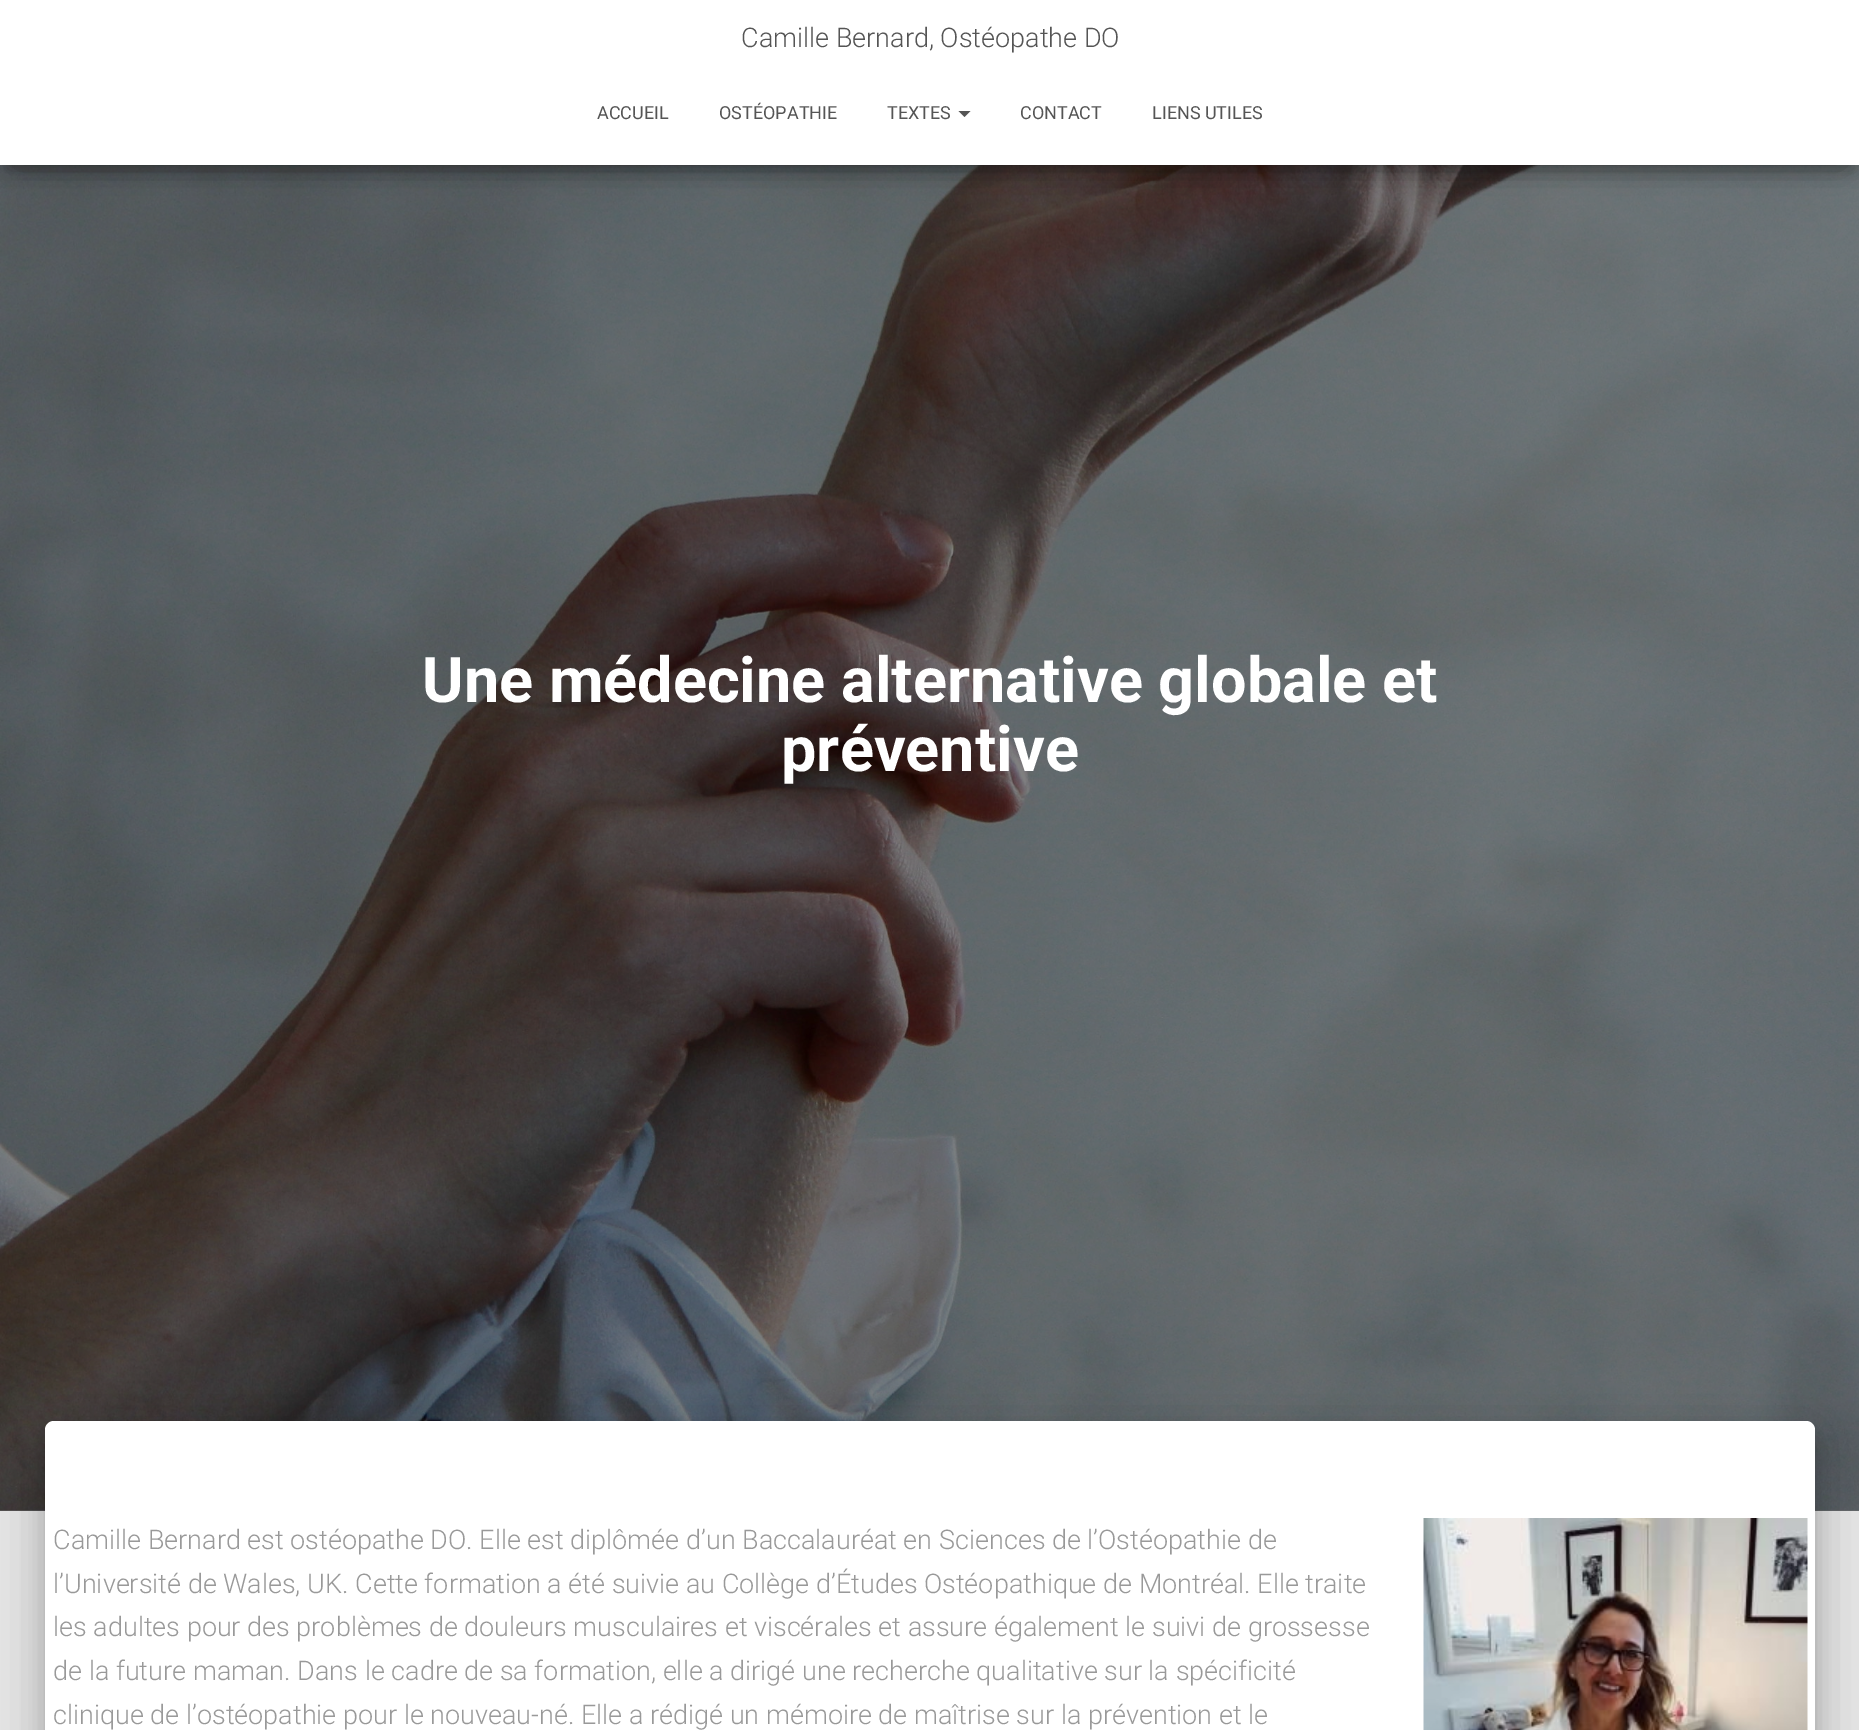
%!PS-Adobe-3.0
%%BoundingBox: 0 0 1859 1730
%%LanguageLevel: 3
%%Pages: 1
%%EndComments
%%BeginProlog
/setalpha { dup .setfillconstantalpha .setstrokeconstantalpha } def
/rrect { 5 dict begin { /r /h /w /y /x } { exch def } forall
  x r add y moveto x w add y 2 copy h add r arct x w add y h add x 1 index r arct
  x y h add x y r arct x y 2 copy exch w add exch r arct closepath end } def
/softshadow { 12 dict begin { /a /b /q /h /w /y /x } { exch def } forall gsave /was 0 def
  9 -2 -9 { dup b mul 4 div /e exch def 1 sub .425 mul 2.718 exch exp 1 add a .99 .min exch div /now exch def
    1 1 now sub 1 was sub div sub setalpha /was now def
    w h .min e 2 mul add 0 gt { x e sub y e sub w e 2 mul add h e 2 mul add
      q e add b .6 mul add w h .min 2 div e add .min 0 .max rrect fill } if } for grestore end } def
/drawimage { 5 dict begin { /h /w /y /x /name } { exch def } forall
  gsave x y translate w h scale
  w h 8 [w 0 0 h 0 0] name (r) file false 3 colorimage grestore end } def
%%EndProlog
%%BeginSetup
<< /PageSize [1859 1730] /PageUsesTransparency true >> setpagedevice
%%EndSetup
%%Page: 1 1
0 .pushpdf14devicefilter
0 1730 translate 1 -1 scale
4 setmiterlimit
0.898 setgray
0 0 1859 1730 rectfill
0.451 setgray
0 1510 1859 1 rectfill
(images/1.raw) 0 165 1859 1346 drawimage
0 setgray
8 20 1845 150 0 7.5 0.2 softshadow
0 5 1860 165 0 15 0.12 softshadow
18 33 1824 129 0 15 0.42 softshadow
1 setgray
0 0 1859 165 rectfill
0.333 setgray
newpath 958.5 111 moveto 970.5 111 lineto 964.5 117 lineto closepath fill
0 setgray
53 1440 1755 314 1.5 7.5 0.2 softshadow
38 1422 1785 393 17 22.5 0.12 softshadow
42 1442 1776 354 12 18 0.14 softshadow
1 setgray
newpath 54 1421 moveto 1806 1421 lineto 1811 1421 1815 1425 1815 1430 curveto 1815 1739 lineto 45 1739 lineto 45 1430 lineto 45 1425 49 1421 54 1421 curveto closepath fill
(images/2.raw) 1423 1518 385 212 drawimage
/Roboto-Light [27 0 0 -27 0 0] selectfont
0.333 setgray
741 47 moveto (Camille Bernard, Ostéopathe DO) show
/Roboto-Regular [18 0 0 -18 0 0] selectfont
597 119 moveto (ACCUEIL) show
719 119 moveto (OSTÉOPATHIE) show
887 119 moveto (TEXTES) show
1020 119 moveto (CONTACT) show
1152 119 moveto (LIENS UTILES) show
/Roboto-Bold [63 0 0 -63 0 0] selectfont
1 setgray
422 702 moveto (Une médecine alternative globale et) show
781 771 moveto (préventive) show
/Roboto-Light [27 0 0 -27 0 0] selectfont
0.6 setgray
53 1549 moveto (Camille Bernard est ostéopathe DO. Elle est diplômée d’un Baccalauréat en Sciences de l’Ostéopathie de) show
53 1593 moveto (l’Université de Wales, UK. Cette formation a été suivie au Collège d’Études Ostéopathique de Montréal. Elle traite) show
53 1636 moveto (les adultes pour des problèmes de douleurs musculaires et viscérales et assure également le suivi de grossesse) show
53 1680 moveto (de la future maman. Dans le cadre de sa formation, elle a dirigé une recherche qualitative sur la spécificité) show
53 1724 moveto (clinique de l’ostéopathie pour le nouveau-né. Elle a rédigé un mémoire de maîtrise sur la prévention et le) show
.poppdf14devicefilter showpage
%%EOF
